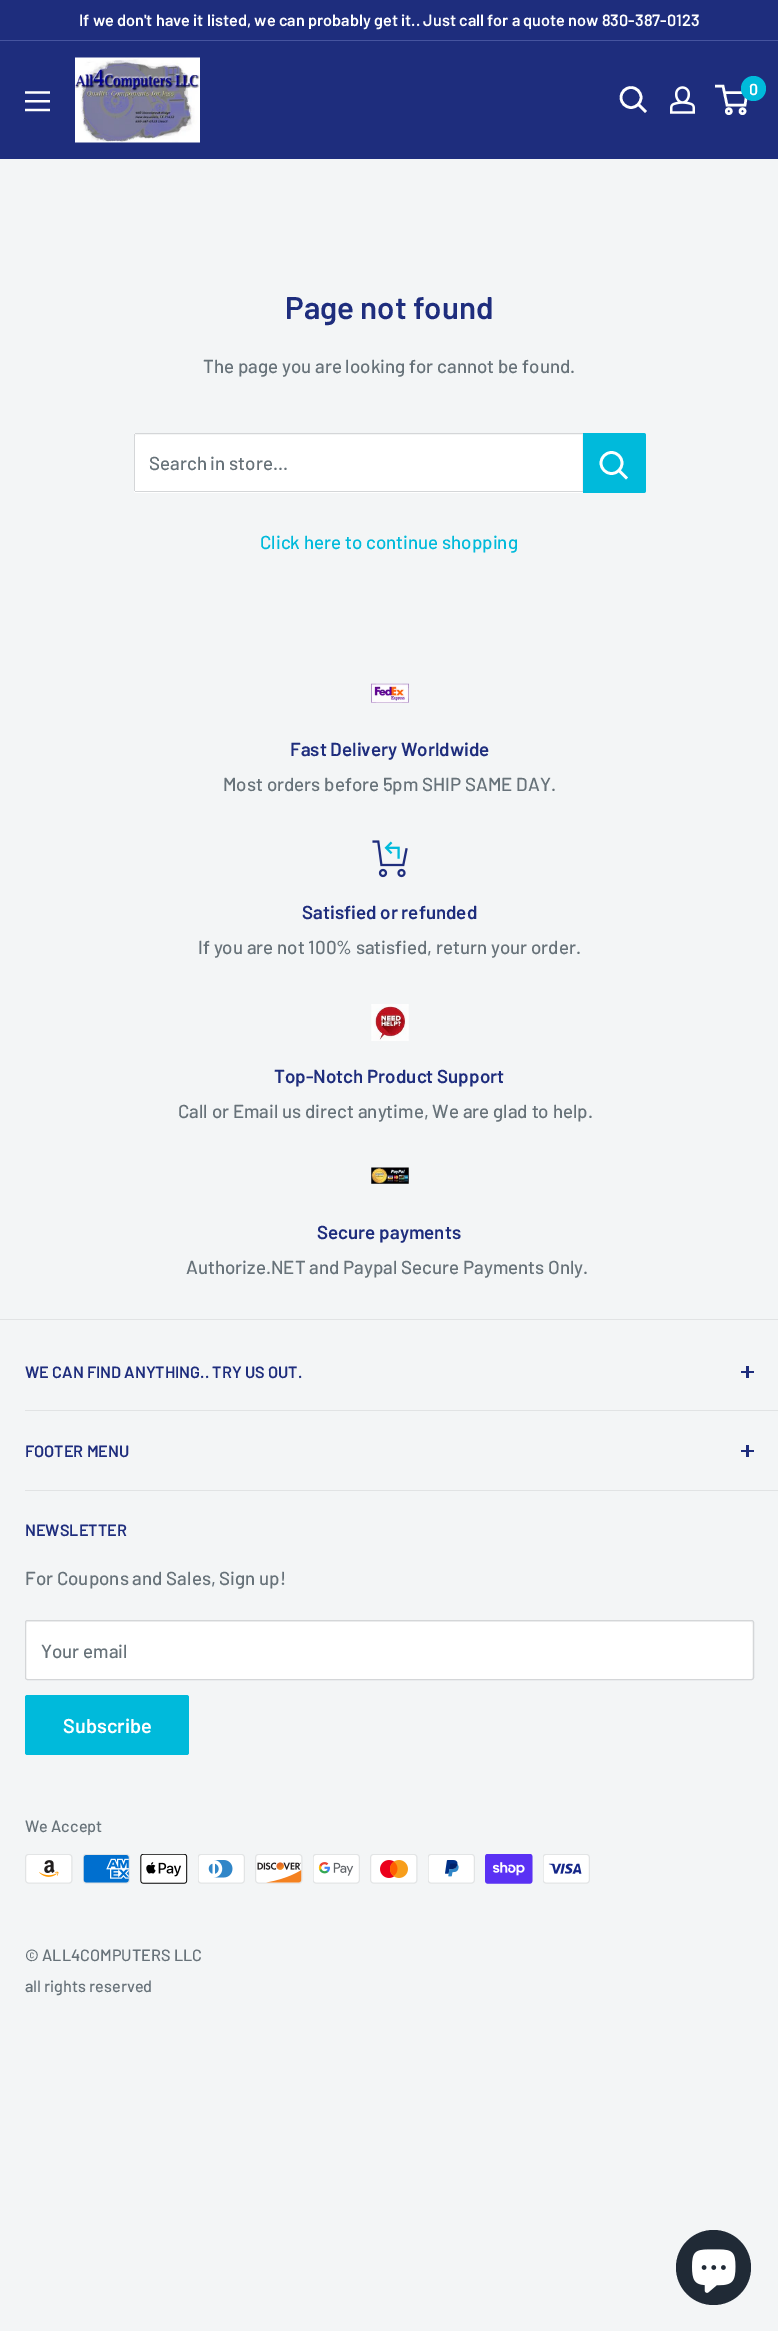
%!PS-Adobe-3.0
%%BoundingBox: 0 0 778 2331
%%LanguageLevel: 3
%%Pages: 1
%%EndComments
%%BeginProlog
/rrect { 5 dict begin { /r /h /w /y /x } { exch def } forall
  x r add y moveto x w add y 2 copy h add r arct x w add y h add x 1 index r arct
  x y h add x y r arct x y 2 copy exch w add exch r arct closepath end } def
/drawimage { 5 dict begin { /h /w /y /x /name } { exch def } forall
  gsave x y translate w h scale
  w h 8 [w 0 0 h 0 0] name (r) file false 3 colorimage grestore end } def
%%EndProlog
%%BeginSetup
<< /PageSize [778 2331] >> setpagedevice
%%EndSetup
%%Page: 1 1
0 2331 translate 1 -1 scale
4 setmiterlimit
0.953 0.961 0.965 setrgbcolor
0 0 778 2331 rectfill
0.118 0.176 0.49 setrgbcolor
0 0 778 40 rectfill
0.275 0.329 0.624 setrgbcolor
0 40 778 1 rectfill
0.118 0.176 0.49 setrgbcolor
0 41 778 118 rectfill
(images/1.raw) 75 57 125 86 drawimage
1 setgray
2.6 setlinewidth
2 setlinecap
newpath 645 111 moveto 638.5 104.5 lineto stroke
0 setlinecap
newpath 631 97.5 10 0 360 arc closepath stroke
(images/2.raw) 670 86 25 28 drawimage
2.5 setlinewidth
newpath 728.8 111.2 2.5 0 360 arc closepath stroke
newpath 742.5 111.2 2.5 0 360 arc closepath stroke
newpath 724 92.5 moveto 747 92.5 lineto 745 105 lineto 727 105 lineto 723 86 lineto 715 86 lineto stroke
0 0.729 0.859 setrgbcolor
newpath 753.5 88.5 12.5 0 360 arc closepath fill
(images/3.raw) 25 91 25 21 drawimage
1 setgray
newpath 136.5 433 moveto 583 433 lineto 583 493 lineto 136.5 493 lineto 135 493 134 492 134 490.5 curveto 134 435.5 lineto 134 434 135 433 136.5 433 curveto closepath fill
0.957 0.961 0.961 setrgbcolor
newpath 136 435 moveto 582 435 lineto 582 491 lineto 583 491 lineto 583 434 lineto 136 434 lineto 135 435 lineto 135 436 lineto closepath fill
0.831 0.839 0.847 setrgbcolor
135 433 448 1 rectfill
135 491 448 1 rectfill
134 434 1 57 rectfill
0 0.729 0.859 setrgbcolor
newpath 583 433 moveto 643.5 433 lineto 645 433 646 434 646 435.5 curveto 646 490.5 lineto 646 492 645 493 643.5 493 curveto 583 493 lineto closepath fill
1 setgray
2.7 setlinewidth
2 setlinecap
newpath 626 477.5 moveto 619 470.5 lineto stroke
0 setlinecap
newpath 611.5 463 10.5 0 360 arc closepath stroke
(images/4.raw) 371 683 38 20 drawimage
(images/5.raw) 372 840 36 38 drawimage
(images/6.raw) 371 1004 38 37 drawimage
(images/7.raw) 371 1167 38 17 drawimage
0.882 0.89 0.894 setrgbcolor
0 1319 778 1 rectfill
25 1410 753 1 rectfill
0.118 0.176 0.49 setrgbcolor
746 1366 3 12 rectfill
741 1371 13 2 rectfill
0.882 0.89 0.894 setrgbcolor
25 1490 753 1 rectfill
0.118 0.176 0.49 setrgbcolor
746 1445 3 12 rectfill
741 1450 13 2 rectfill
1 setgray
25 1620 729 60 2.5 rrect fill
0.957 0.961 0.961 setrgbcolor
newpath 28 1622 moveto 751 1622 lineto 752 1622 752 1623 752 1624 curveto 752 1679 lineto 753 1679 753 1679 753 1678 curveto 753 1622 lineto 753 1621 753 1621 752 1621 curveto 27 1621 lineto 26 1621 26 1621 26 1622 curveto 26 1624 lineto 26 1623 27 1622 28 1622 curveto closepath fill
0.831 0.839 0.847 setrgbcolor
1 setlinewidth
25.5 1620.5 728 59 2 rrect stroke
0 0.729 0.859 setrgbcolor
25 1695 164 60 2.5 rrect fill
(images/8.raw) 25 1854 48 30 drawimage
(images/9.raw) 83 1854 47 30 drawimage
(images/10.raw) 140 1854 48 30 drawimage
(images/11.raw) 198 1854 47 30 drawimage
(images/12.raw) 255 1854 48 30 drawimage
(images/13.raw) 313 1854 47 30 drawimage
(images/14.raw) 370 1854 48 30 drawimage
(images/15.raw) 428 1854 47 30 drawimage
(images/16.raw) 485 1854 48 30 drawimage
(images/17.raw) 543 1854 47 30 drawimage
0.125 0.165 0.212 setrgbcolor
newpath 713.5 2267.5 37.5 0 360 arc closepath fill
(images/18.raw) 692 2249 44 44 drawimage
/Barlow-SemiBold [16.25 0 0 -16.25 0 0] selectfont
1 setgray
79 26 moveto (If we don't have it listed, we can probably get it.. Just call for a quote now 830-387-0123) show
/Barlow-SemiBold [16 0 0 -16 0 0] selectfont
749 95 moveto (0) show
/Barlow-SemiBold [31.25 0 0 -31.25 0 0] selectfont
0.118 0.176 0.49 setrgbcolor
285 319 moveto (Page not found) show
/Barlow-Medium [18.75 0 0 -18.75 0 0] selectfont
0.404 0.447 0.475 setrgbcolor
203 373 moveto (The page you are looking for cannot be found.) show
149 470 moveto (Search in store...) show
0 0.729 0.859 setrgbcolor
260 549 moveto (Click here to continue shopping) show
/Barlow-SemiBold [18.75 0 0 -18.75 0 0] selectfont
0.118 0.176 0.49 setrgbcolor
290 756 moveto (Fast Delivery Worldwide) show
/Barlow-Medium [18.75 0 0 -18.75 0 0] selectfont
0.404 0.447 0.475 setrgbcolor
223 791 moveto (Most orders before 5pm SHIP SAME DAY.) show
/Barlow-SemiBold [18.75 0 0 -18.75 0 0] selectfont
0.118 0.176 0.49 setrgbcolor
302 919 moveto (Satisfied or refunded) show
/Barlow-Medium [18.75 0 0 -18.75 0 0] selectfont
0.404 0.447 0.475 setrgbcolor
198 954 moveto (If you are not 100% satisfied, return your order.) show
/Barlow-SemiBold [18.75 0 0 -18.75 0 0] selectfont
0.118 0.176 0.49 setrgbcolor
274 1083 moveto (Top-Notch Product Support) show
/Barlow-Medium [18.75 0 0 -18.75 0 0] selectfont
0.404 0.447 0.475 setrgbcolor
178 1118 moveto (Call or Email us direct anytime, We are glad to help.) show
/Barlow-SemiBold [18.75 0 0 -18.75 0 0] selectfont
0.118 0.176 0.49 setrgbcolor
317 1239 moveto (Secure payments) show
/Barlow-Medium [18.75 0 0 -18.75 0 0] selectfont
0.404 0.447 0.475 setrgbcolor
186 1274 moveto (Authorize.NET and Paypal Secure Payments Only.) show
/Barlow-SemiBold [16.25 0 0 -16.25 0 0] selectfont
0.118 0.176 0.49 setrgbcolor
25 1378 moveto (WE CAN FIND ANYTHING.. TRY US OUT.) show
25 1457 moveto (FOOTER MENU) show
25 1536 moveto (NEWSLETTER) show
/Barlow-Medium [18.75 0 0 -18.75 0 0] selectfont
0.404 0.447 0.475 setrgbcolor
25 1585 moveto (For Coupons and Sales, Sign up!) show
41 1658 moveto (Your email) show
/Barlow-SemiBold [20 0 0 -20 0 0] selectfont
1 setgray
63 1733 moveto (Subscribe) show
/Barlow-Medium [16.25 0 0 -16.25 0 0] selectfont
0.404 0.447 0.475 setrgbcolor
25 1832 moveto (We Accept) show
25 1961 moveto (© ALL4COMPUTERS LLC) show
25 1992 moveto (all rights reserved) show
showpage
%%EOF
